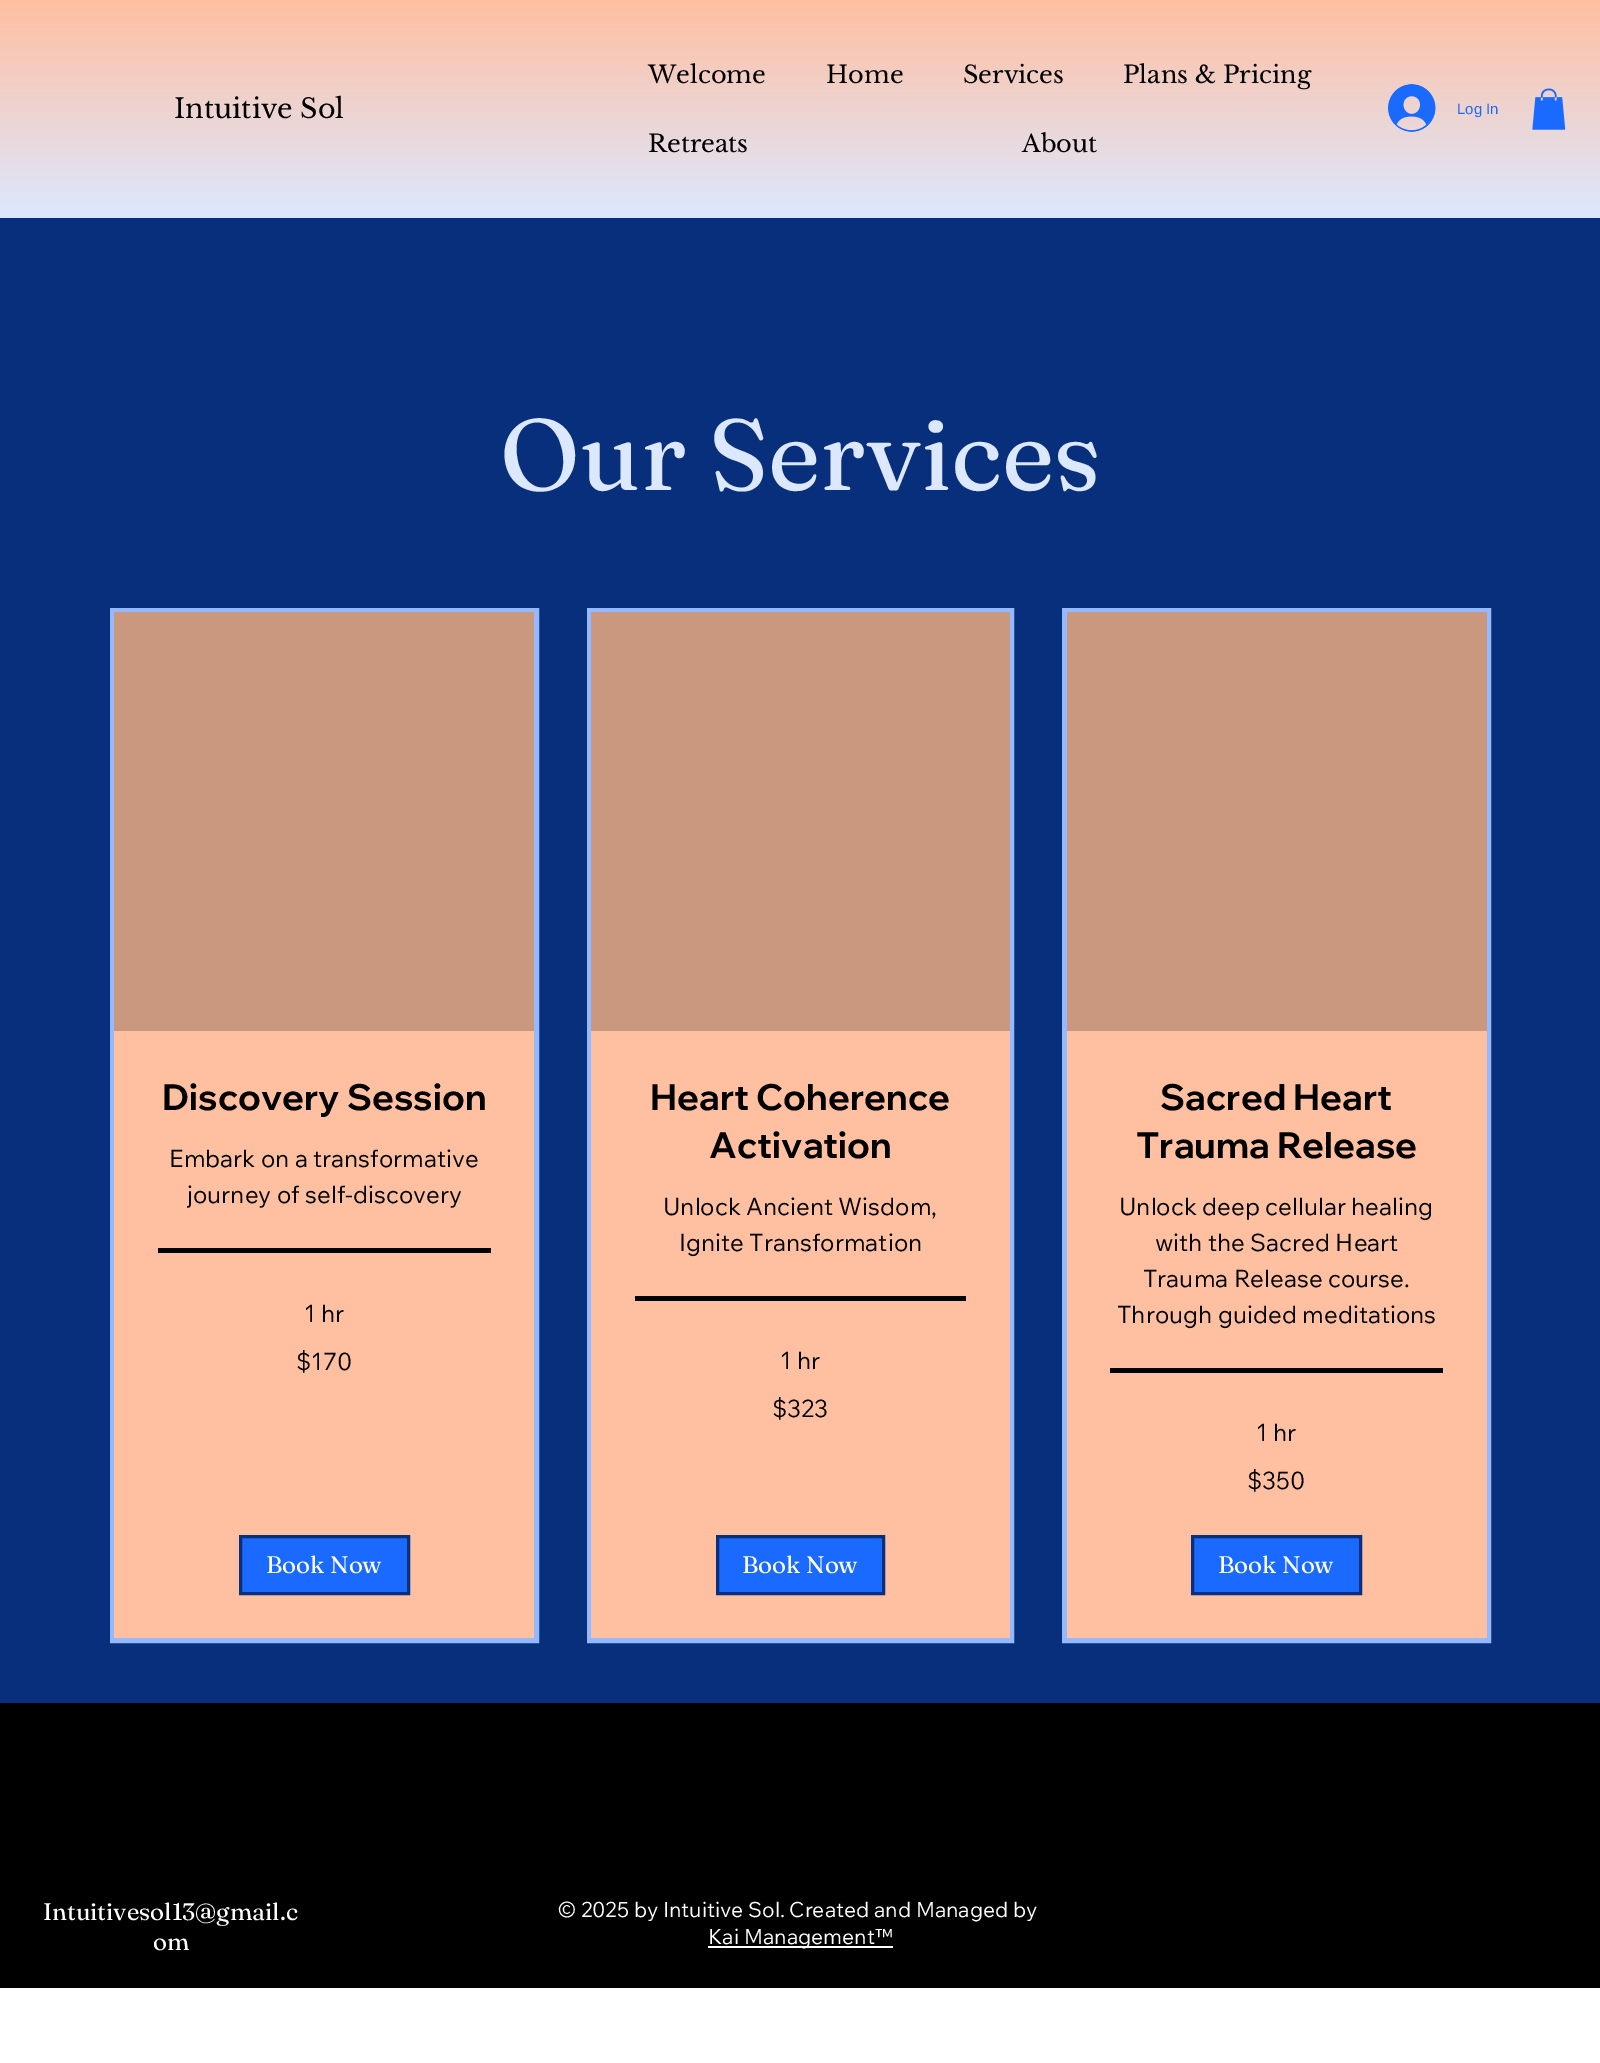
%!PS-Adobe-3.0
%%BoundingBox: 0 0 1600 2063
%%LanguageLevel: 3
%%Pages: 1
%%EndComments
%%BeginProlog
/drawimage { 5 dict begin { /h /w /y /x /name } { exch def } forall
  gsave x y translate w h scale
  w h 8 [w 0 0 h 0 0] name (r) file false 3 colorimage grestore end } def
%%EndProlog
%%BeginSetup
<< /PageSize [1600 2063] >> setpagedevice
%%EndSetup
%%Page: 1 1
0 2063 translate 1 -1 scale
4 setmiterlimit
1 setgray
0 0 1600 2063 rectfill
gsave newpath 0 0 moveto 1600 0 lineto 1600 218 lineto 0 218 lineto closepath clip newpath
<< /ShadingType 2 /ColorSpace /DeviceRGB /Coords [800 0 800 218] /Extend [true true] /Function << /FunctionType 2 /Domain [0 1] /C0 [1 0.749 0.631] /C1 [0.863 0.91 1] /N 1 >> >> shfill grestore
(images/1.raw) 1388 84 48 48 drawimage
(images/2.raw) 1532 88 34 42 drawimage
0.031 0.184 0.482 setrgbcolor
0 218 1600 1485 rectfill
0.584 0.725 1 setrgbcolor
5 setlinewidth
112.5 610.5 424 1030 rectstroke
0.792 0.592 0.498 setrgbcolor
114 612 420 419 rectfill
1 0.749 0.631 setrgbcolor
114 1031 420 607 rectfill
0 setgray
158 1248 333 5 rectfill
0.102 0.416 1 setrgbcolor
newpath 240.5 1536.5 moveto 408.5 1536.5 lineto 408.5 1593.5 lineto 240.5 1593.5 lineto closepath gsave fill grestore
0.031 0.184 0.482 setrgbcolor
3 setlinewidth
stroke
0.584 0.725 1 setrgbcolor
5 setlinewidth
589.5 610.5 422 1030 rectstroke
0.792 0.592 0.498 setrgbcolor
591 612 419 419 rectfill
1 0.749 0.631 setrgbcolor
591 1031 419 607 rectfill
0 setgray
635 1296 331 5 rectfill
0.102 0.416 1 setrgbcolor
newpath 717.5 1536.5 moveto 883.5 1536.5 lineto 883.5 1593.5 lineto 717.5 1593.5 lineto closepath gsave fill grestore
0.031 0.184 0.482 setrgbcolor
3 setlinewidth
stroke
0.584 0.725 1 setrgbcolor
5 setlinewidth
1064.5 610.5 424 1030 rectstroke
0.792 0.592 0.498 setrgbcolor
1067 612 420 419 rectfill
1 0.749 0.631 setrgbcolor
1067 1031 420 607 rectfill
0 setgray
1110 1368 333 5 rectfill
0.102 0.416 1 setrgbcolor
newpath 1192.5 1536.5 moveto 1360.5 1536.5 lineto 1360.5 1593.5 lineto 1192.5 1593.5 lineto closepath gsave fill grestore
0.031 0.184 0.482 setrgbcolor
3 setlinewidth
stroke
0 setgray
0 1703 1600 285 rectfill
1 setgray
708 1946 185 2 rectfill
/LibreBaskerville-Regular [27 0 0 -27 0 0] selectfont
0 setgray
174 118 moveto (Intuitive Sol) show
/LibreBaskerville-Regular [24 0 0 -24 0 0] selectfont
648 83 moveto (Welcome) show
826 83 moveto (Home) show
963 83 moveto (Services) show
1123 83 moveto (Plans & Pricing) show
648 152 moveto (Retreats) show
1022 152 moveto (About) show
/LiberationSans-Regular [15 0 0 -15 0 0] selectfont
0.102 0.416 1 setrgbcolor
1457 114 moveto (Log In) show
/Fraunces-Regular [100.5 0 0 -100.5 0 0] selectfont
0.863 0.91 1 setrgbcolor
500 490 moveto (Our Services) show
/WixMadeforDisplay-Bold [36 0 0 -36 0 0] selectfont
0 setgray
162 1110 moveto (Discovery Session) show
/WixMadeforText-Regular [24 0 0 -24 0 0] selectfont
169 1167 moveto (Embark on a transformative) show
187 1203 moveto (journey of self-discovery) show
304 1322 moveto (1 hr) show
296 1370 moveto ($170) show
/Fraunces-Regular [24 0 0 -24 0 0] selectfont
1 setgray
266 1573 moveto (Book Now) show
/WixMadeforDisplay-Bold [36 0 0 -36 0 0] selectfont
0 setgray
650 1110 moveto (Heart Coherence) show
709 1158 moveto (Activation) show
/WixMadeforText-Regular [24 0 0 -24 0 0] selectfont
663 1215 moveto (Unlock Ancient Wisdom,) show
679 1251 moveto (Ignite Transformation) show
780 1369 moveto (1 hr) show
772 1417 moveto ($323) show
/Fraunces-Regular [24 0 0 -24 0 0] selectfont
1 setgray
742 1573 moveto (Book Now) show
/WixMadeforDisplay-Bold [36 0 0 -36 0 0] selectfont
0 setgray
1160 1110 moveto (Sacred Heart) show
1136 1158 moveto (Trauma Release) show
/WixMadeforText-Regular [24 0 0 -24 0 0] selectfont
1119 1215 moveto (Unlock deep cellular healing) show
1155 1251 moveto (with the Sacred Heart) show
1143 1287 moveto (Trauma Release course.) show
1117 1323 moveto (Through guided meditations) show
1256 1441 moveto (1 hr) show
1247 1489 moveto ($350) show
/Fraunces-Regular [24 0 0 -24 0 0] selectfont
1 setgray
1218 1573 moveto (Book Now) show
43 1920 moveto (Intuitivesol13@gmail.c) show
153 1950 moveto (om) show
/WixMadeforText-Regular [21 0 0 -21 0 0] selectfont
558 1917 moveto (© 2025 by Intuitive Sol. Created and Managed by) show
708 1944 moveto (Kai Management™) show
showpage
%%EOF
